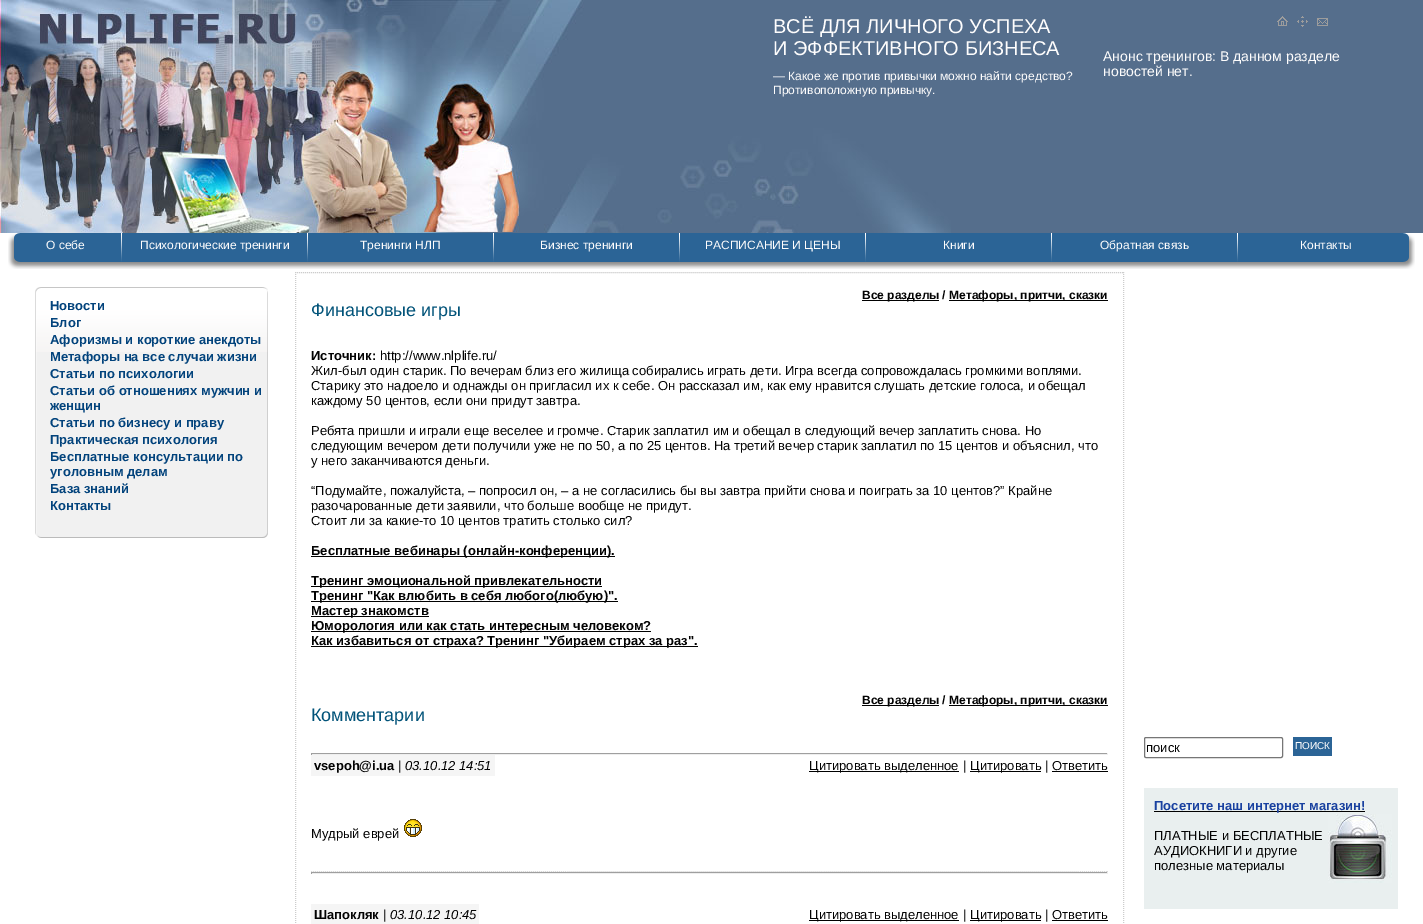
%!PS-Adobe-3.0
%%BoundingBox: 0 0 1423 924
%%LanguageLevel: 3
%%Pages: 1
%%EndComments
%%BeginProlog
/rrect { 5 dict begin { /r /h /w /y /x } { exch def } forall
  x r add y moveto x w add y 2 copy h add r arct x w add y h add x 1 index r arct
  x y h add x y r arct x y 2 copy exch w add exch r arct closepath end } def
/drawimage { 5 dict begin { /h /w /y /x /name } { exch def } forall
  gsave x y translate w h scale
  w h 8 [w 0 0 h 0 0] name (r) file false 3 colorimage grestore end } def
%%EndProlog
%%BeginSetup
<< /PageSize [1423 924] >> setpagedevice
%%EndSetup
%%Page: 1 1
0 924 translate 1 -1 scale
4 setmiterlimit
1 setgray
0 0 1423 924 rectfill
0.333 0.431 0.549 setrgbcolor
951 0 472 233 rectfill
(images/1.raw) 0 0 951 233 drawimage
(images/2.raw) 1277 16 11 10 drawimage
(images/3.raw) 1297 16 11 11 drawimage
(images/4.raw) 1317 18 11 8 drawimage
(images/5.raw) 106 233 15 36 drawimage
(images/6.raw) 8 233 98 36 drawimage
(images/7.raw) 121 235 1 34 drawimage
(images/8.raw) 122 233 185 36 drawimage
(images/7.raw) 307 235 1 34 drawimage
(images/8.raw) 308 233 185 36 drawimage
(images/7.raw) 493 235 1 34 drawimage
(images/8.raw) 494 233 185 36 drawimage
(images/7.raw) 679 235 1 34 drawimage
(images/8.raw) 680 233 185 36 drawimage
(images/7.raw) 865 235 1 34 drawimage
(images/8.raw) 866 233 185 36 drawimage
(images/7.raw) 1051 235 1 34 drawimage
(images/8.raw) 1052 233 185 36 drawimage
(images/7.raw) 1237 235 1 34 drawimage
(images/5.raw) 1238 233 15 36 drawimage
(images/9.raw) 1253 233 162 36 drawimage
(images/10.raw) 35 352 233 181 drawimage
(images/11.raw) 35 287 233 65 drawimage
(images/12.raw) 35 533 233 5 drawimage
0.8 setgray
[1 1] 0 setdash
newpath 295 272.5 moveto 1124 272.5 lineto stroke
newpath 1123.5 272 moveto 1123.5 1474 lineto stroke
newpath 295.5 272 moveto 295.5 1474 lineto stroke
0 setgray
862 300 77 1 rectfill
949 300 159 1 rectfill
311 556 304 1 rectfill
311 586 291 1 rectfill
311 601 307 1 rectfill
311 616 118 1 rectfill
311 631 340 1 rectfill
311 646 387 1 rectfill
862 705 77 1 rectfill
949 705 159 1 rectfill
0.624 setgray
311 753 797 1 rectfill
0.933 setgray
1107 753 1 2 rectfill
311 754 797 1 rectfill
0.624 setgray
311 753 1 2 rectfill
0.961 setgray
311 755 184 21 rectfill
0 setgray
809 771 150 1 rectfill
970 771 71 1 rectfill
1052 771 56 1 rectfill
(images/13.raw) 404 819 18 18 drawimage
0.851 setgray
newpath 311 871.5 moveto 1108 871.5 lineto stroke
0.624 setgray
311 872 797 1 rectfill
0.933 setgray
1107 872 1 2 rectfill
311 873 797 1 rectfill
0.624 setgray
311 872 1 2 rectfill
0.961 setgray
311 904 168 20 rectfill
0 setgray
809 920 150 1 rectfill
970 920 71 1 rectfill
1052 920 56 1 rectfill
0.463 setgray
[] 0 setdash
1144.5 737.5 138 20 1.5 rrect stroke
0.169 0.392 0.588 setrgbcolor
1293 737 39 19 rectfill
0.914 0.937 0.937 setrgbcolor
1144 788 254 121 rectfill
(images/14.raw) 1328 814 64 69 drawimage
0 setgray
1154 811 211 1 rectfill
/LiberationSans-Regular [20 0 0 -20 0 0] selectfont
0.996 0.992 0.992 setrgbcolor
773 33 moveto (ВСЁ ДЛЯ ЛИЧНОГО УСПЕХА) show
773 55 moveto (И ЭФФЕКТИВНОГО БИЗНЕСА) show
/LiberationSans-Regular [12 0 0 -12 0 0] selectfont
773 80 moveto (— Какое же против привычки можно найти средство?) show
773 94 moveto (Противоположную привычку.) show
/LiberationSans-Regular [14 0 0 -14 0 0] selectfont
1103 61 moveto (Анонс тренингов: В данном разделе) show
1103 76 moveto (новостей нет.) show
/LiberationSans-Regular [12 0 0 -12 0 0] selectfont
46 249 moveto (О себе) show
140 249 moveto (Психологические тренинги) show
360 249 moveto (Тренинги НЛП) show
540 249 moveto (Бизнес тренинги) show
705 249 moveto (РАСПИСАНИЕ И ЦЕНЫ) show
943 249 moveto (Книги) show
1100 249 moveto (Обратная связь) show
1300 249 moveto (Контакты) show
/LiberationSans-Bold [13 0 0 -13 0 0] selectfont
0.008 0.263 0.486 setrgbcolor
50 310 moveto (Новости) show
50 327 moveto (Блог) show
50 344 moveto (Афоризмы и короткие анекдоты) show
50 361 moveto (Метафоры на все случаи жизни) show
50 378 moveto (Статьи по психологии) show
50 395 moveto (Статьи об отношениях мужчин и) show
50 410 moveto (женщин) show
50 427 moveto (Статьи по бизнесу и праву) show
50 444 moveto (Практическая психология) show
50 461 moveto (Бесплатные консультации по) show
50 476 moveto (уголовным делам) show
50 493 moveto (База знаний) show
50 510 moveto (Контакты) show
/LiberationSans-Bold [12 0 0 -12 0 0] selectfont
0.008 setgray
862 299 moveto (Все разделы) show
942 299 moveto (/) show
949 299 moveto (Метафоры, притчи, сказки) show
/LiberationSans-Regular [18 0 0 -18 0 0] selectfont
0.004 0.325 0.475 setrgbcolor
311 316 moveto (Финансовые игры) show
/LiberationSans-Bold [13 0 0 -13 0 0] selectfont
0.008 setgray
311 360 moveto (Источник:) show
/LiberationSans-Regular [13 0 0 -13 0 0] selectfont
380 360 moveto (http://www.nlplife.ru/) show
311 375 moveto (Жил-был один старик. По вечерам близ его жилища собирались играть дети. Игра всегда сопровождалась громкими воплями.) show
311 390 moveto (Старику это надоело и однажды он пригласил их к себе. Он рассказал им, как ему нравится слушать детские голоса, и обещал) show
311 405 moveto (каждому 50 центов, если они придут завтра.) show
311 435 moveto (Ребята пришли и играли еще веселее и громче. Старик заплатил им и обещал в следующий вечер заплатить снова. Но) show
311 450 moveto (следующим вечером дети получили уже не по 50, а по 25 центов. На третий вечер старик заплатил по 15 центов и объяснил, что) show
311 465 moveto (у него заканчиваются деньги.) show
311 495 moveto (“Подумайте, пожалуйста, – попросил он, – а не согласились бы вы завтра прийти снова и поиграть за 10 центов?” Крайне) show
311 510 moveto (разочарованные дети заявили, что больше вообще не придут.) show
311 525 moveto (Стоит ли за какие-то 10 центов тратить столько сил?) show
/LiberationSans-Bold [13 0 0 -13 0 0] selectfont
311 555 moveto (Бесплатные вебинары \(онлайн-конференции\).) show
311 585 moveto (Тренинг эмоциональной привлекательности) show
311 600 moveto (Тренинг "Как влюбить в себя любого\(любую\)".) show
311 615 moveto (Мастер знакомств) show
311 630 moveto (Юморология или как стать интересным человеком?) show
311 645 moveto (Как избавиться от страха? Тренинг "Убираем страх за раз".) show
/LiberationSans-Bold [12 0 0 -12 0 0] selectfont
862 704 moveto (Все разделы) show
942 704 moveto (/) show
949 704 moveto (Метафоры, притчи, сказки) show
/LiberationSans-Regular [18 0 0 -18 0 0] selectfont
0.004 0.325 0.475 setrgbcolor
311 721 moveto (Комментарии) show
/LiberationSans-Bold [13 0 0 -13 0 0] selectfont
0.008 setgray
314 770 moveto (vsepoh@i.ua) show
/LiberationSans-Regular [13 0 0 -13 0 0] selectfont
398 770 moveto (|) show
/LiberationSans-Italic [13 0 0 -13 0 0] selectfont
405 770 moveto (03.10.12 14:51) show
/LiberationSans-Regular [13 0 0 -13 0 0] selectfont
809 770 moveto (Цитировать выделенное) show
963 770 moveto (|) show
970 770 moveto (Цитировать) show
1045 770 moveto (|) show
1052 770 moveto (Ответить) show
311 838 moveto (Мудрый еврей) show
/LiberationSans-Bold [13 0 0 -13 0 0] selectfont
314 919 moveto (Шапокляк) show
/LiberationSans-Regular [13 0 0 -13 0 0] selectfont
383 919 moveto (|) show
/LiberationSans-Italic [13 0 0 -13 0 0] selectfont
390 919 moveto (03.10.12 10:45) show
/LiberationSans-Regular [13 0 0 -13 0 0] selectfont
809 919 moveto (Цитировать выделенное) show
963 919 moveto (|) show
970 919 moveto (Цитировать) show
1045 919 moveto (|) show
1052 919 moveto (Ответить) show
1146 752 moveto (поиск) show
/LiberationSans-Regular [10 0 0 -10 0 0] selectfont
0.996 0.992 0.992 setrgbcolor
1295 749 moveto (ПОИСК) show
/LiberationSans-Bold [13 0 0 -13 0 0] selectfont
0.098 0.255 0.627 setrgbcolor
1154 810 moveto (Посетите наш интернет магазин!) show
/LiberationSans-Regular [13 0 0 -13 0 0] selectfont
0.008 setgray
1154 840 moveto (ПЛАТНЫЕ и БЕСПЛАТНЫЕ) show
1154 855 moveto (АУДИОКНИГИ и другие) show
1154 870 moveto (полезные материалы) show
showpage
%%EOF
